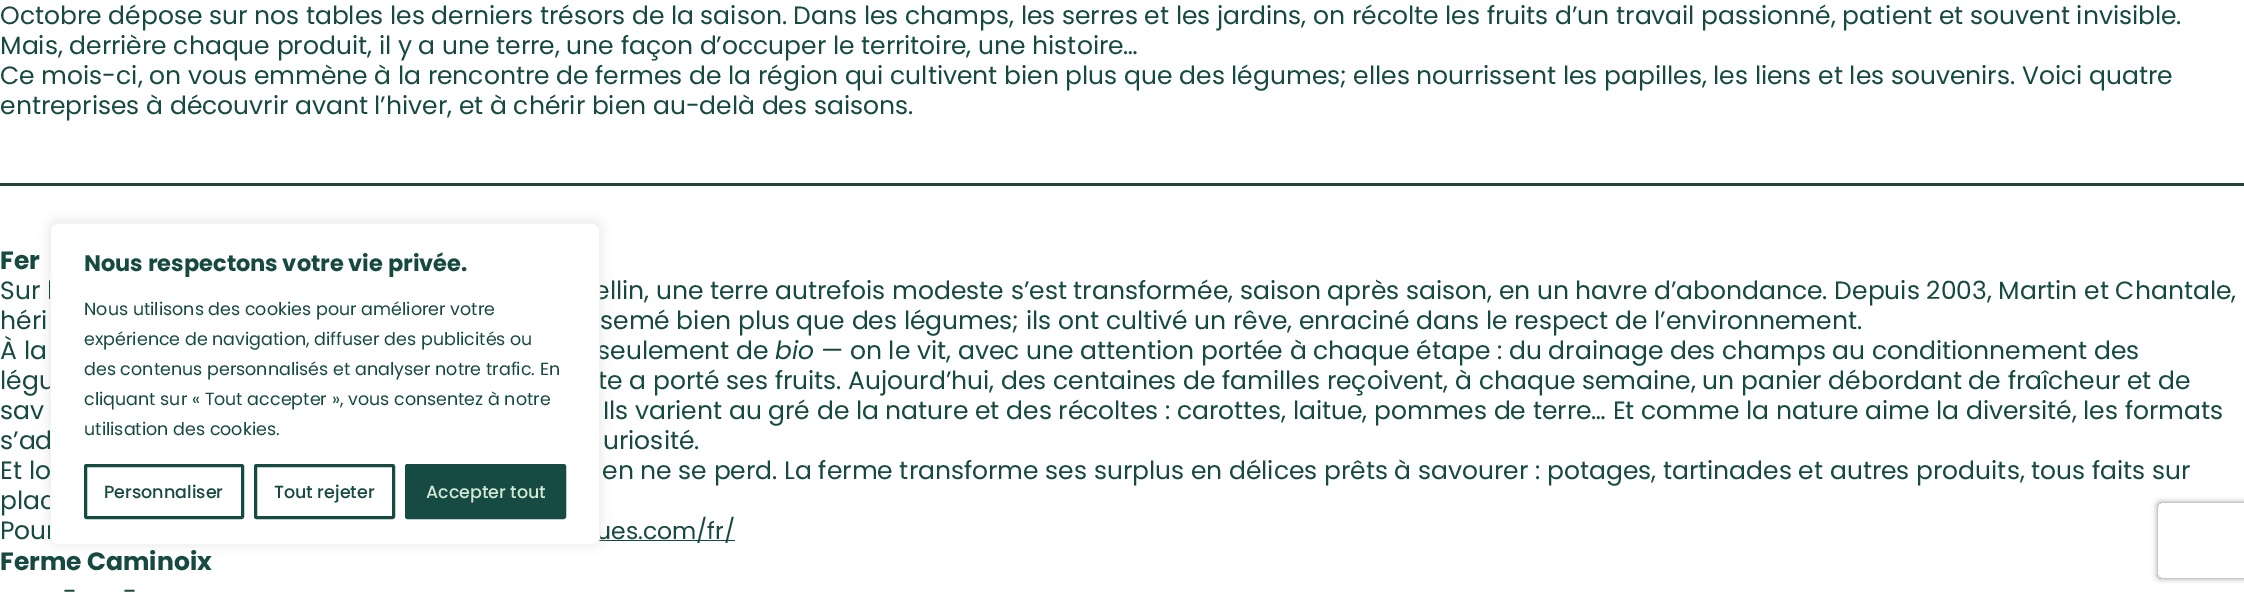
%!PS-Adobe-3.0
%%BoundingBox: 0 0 2244 594
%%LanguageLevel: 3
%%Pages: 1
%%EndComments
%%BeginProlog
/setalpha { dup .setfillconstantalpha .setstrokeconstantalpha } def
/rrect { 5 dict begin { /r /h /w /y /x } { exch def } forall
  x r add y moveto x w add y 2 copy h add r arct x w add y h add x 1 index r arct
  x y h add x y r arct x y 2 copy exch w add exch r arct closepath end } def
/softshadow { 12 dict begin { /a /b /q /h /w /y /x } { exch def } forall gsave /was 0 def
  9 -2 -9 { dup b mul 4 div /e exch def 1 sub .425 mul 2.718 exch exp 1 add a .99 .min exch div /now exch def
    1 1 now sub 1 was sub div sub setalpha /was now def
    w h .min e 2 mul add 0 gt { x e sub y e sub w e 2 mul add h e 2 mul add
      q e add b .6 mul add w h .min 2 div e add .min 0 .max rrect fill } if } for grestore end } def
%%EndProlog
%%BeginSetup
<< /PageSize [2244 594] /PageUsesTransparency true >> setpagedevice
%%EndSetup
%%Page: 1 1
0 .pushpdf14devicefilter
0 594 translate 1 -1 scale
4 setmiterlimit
1 setgray
0 0 2244 594 rectfill
0.149 0.263 0.22 setrgbcolor
0 183 2244 3 rectfill
0.086 0.29 0.255 setrgbcolor
598 540 137 1 rectfill
0.675 0.671 0.671 setrgbcolor
50 221 550 323 8 6 0.3 softshadow
gsave
newpath 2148 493 moveto 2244 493 lineto 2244 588 lineto 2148 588 lineto closepath 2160.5 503 moveto 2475.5 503 lineto 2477 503 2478 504 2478 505.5 curveto 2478 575.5 lineto 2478 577 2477 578 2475.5 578 curveto 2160.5 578 lineto 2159 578 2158 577 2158 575.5 curveto 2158 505.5 lineto 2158 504 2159 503 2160.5 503 curveto closepath eoclip newpath
0.502 setgray
2158 503 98 75 2.5 3 1 softshadow
grestore
/Poppins-Regular [25 0 0 -25 0 0] selectfont
0.086 0.29 0.255 setrgbcolor
0 24 moveto (Octobre dépose sur nos tables les derniers trésors de la saison. Dans les champs, les serres et les jardins, on récolte les fruits d’un travail passionné, patient et souvent invisible.) show
0 54 moveto (Mais, derrière chaque produit, il y a une terre, une façon d’occuper le territoire, une histoire…) show
0 84 moveto (Ce mois-ci, on vous emmène à la rencontre de fermes de la région qui cultivent bien plus que des légumes; elles nourrissent les papilles, les liens et les souvenirs. Voici quatre) show
0 114 moveto (entreprises à découvrir avant l’hiver, et à chérir bien au-delà des saisons.) show
/Poppins-Bold [25 0 0 -25 0 0] selectfont
0 269 moveto (Fer) show
/Poppins-Regular [25 0 0 -25 0 0] selectfont
0 299 moveto (Sur l) show
594 299 moveto (ellin, une terre autrefois modeste s’est transformée, saison après saison, en un havre d’abondance. Depuis 2003, Martin et Chantale,) show
0 329 moveto (héri) show
600 329 moveto (semé bien plus que des légumes; ils ont cultivé un rêve, enraciné dans le respect de l’environnement.) show
0 359 moveto (À la) show
597 359 moveto (seulement de) show
/Poppins-Italic [25 0 0 -25 0 0] selectfont
775 359 moveto (bio) show
/Poppins-Regular [25 0 0 -25 0 0] selectfont
821 359 moveto (— on le vit, avec une attention portée à chaque étape : du drainage des champs au conditionnement des) show
0 389 moveto (légu) show
598 389 moveto (te a porté ses fruits. Aujourd’hui, des centaines de familles reçoivent, à chaque semaine, un panier débordant de fraîcheur et de) show
0 419 moveto (sav) show
603 419 moveto (Ils varient au gré de la nature et des récoltes : carottes, laitue, pommes de terre… Et comme la nature aime la diversité, les formats) show
0 449 moveto (s’ad) show
603 449 moveto (uriosité.) show
0 479 moveto (Et lo) show
602 479 moveto (en ne se perd. La ferme transforme ses surplus en délices prêts à savourer : potages, tartinades et autres produits, tous faits sur) show
0 509 moveto (plac) show
0 539 moveto (Pour) show
/Poppins-Regular [23.5 0 0 -23.5 0 0] selectfont
596 539 moveto (ues.com/fr/) show
/Poppins-Bold [25 0 0 -25 0 0] selectfont
0 570 moveto (Ferme Caminoix) show
/Poppins-Regular [25 0 0 -25 0 0] selectfont
63 600 moveto (-) show
123 600 moveto (-) show
1 setgray
50.5 223.5 549 321 7.5 rrect gsave fill grestore
0.957 setgray
stroke
/Poppins-Bold [22.5 0 0 -22.5 0 0] selectfont
0.086 0.29 0.255 setrgbcolor
84 271 moveto (Nous respectons votre vie privée.) show
/Poppins-Regular [17.5 0 0 -17.5 0 0] selectfont
84 315 moveto (Nous utilisons des cookies pour améliorer votre) show
84 345 moveto (expérience de navigation, diffuser des publicités ou) show
84 375 moveto (des contenus personnalisés et analyser notre trafic. En) show
84 405 moveto (cliquant sur « Tout accepter », vous consentez à notre) show
84 435 moveto (utilisation des cookies.) show
0.086 0.294 0.263 setrgbcolor
3 setlinewidth
85.5 465.5 157 52 1 rrect stroke
/Poppins-Medium [17.5 0 0 -17.5 0 0] selectfont
0.086 0.29 0.255 setrgbcolor
104 498 moveto (Personnaliser) show
0.086 0.294 0.263 setrgbcolor
255.5 465.5 138 52 1 rrect stroke
0.086 0.29 0.255 setrgbcolor
274 498 moveto (Tout rejeter) show
0.086 0.294 0.263 setrgbcolor
406.5 465.5 158 52 1 rrect gsave fill grestore
stroke
0.824 0.91 0.835 setrgbcolor
426 498 moveto (Accepter tout) show
.poppdf14devicefilter showpage
%%EOF
